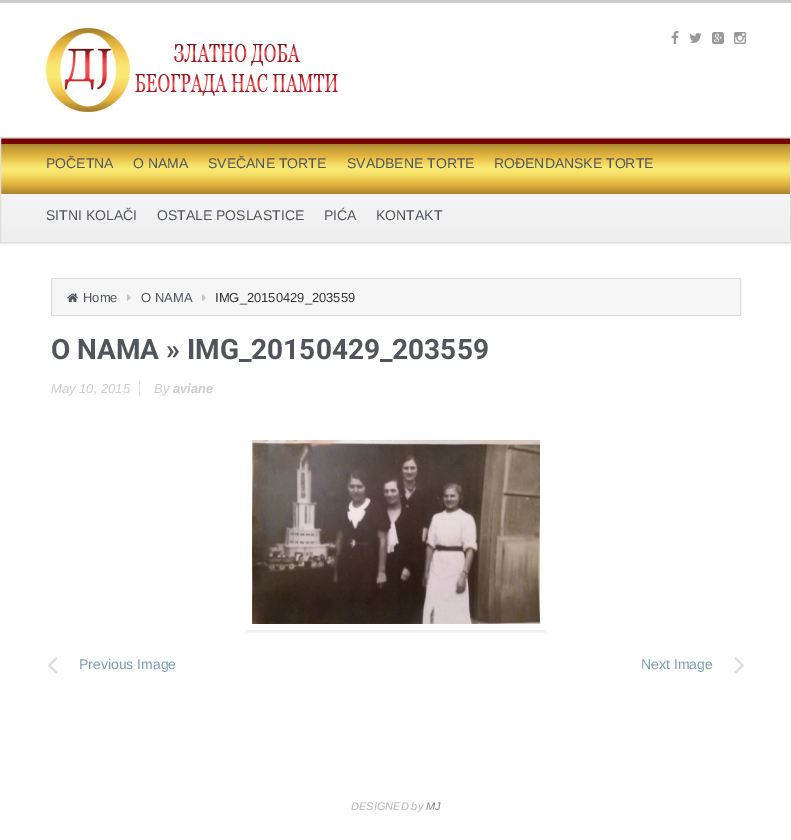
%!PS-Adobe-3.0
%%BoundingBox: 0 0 791 840
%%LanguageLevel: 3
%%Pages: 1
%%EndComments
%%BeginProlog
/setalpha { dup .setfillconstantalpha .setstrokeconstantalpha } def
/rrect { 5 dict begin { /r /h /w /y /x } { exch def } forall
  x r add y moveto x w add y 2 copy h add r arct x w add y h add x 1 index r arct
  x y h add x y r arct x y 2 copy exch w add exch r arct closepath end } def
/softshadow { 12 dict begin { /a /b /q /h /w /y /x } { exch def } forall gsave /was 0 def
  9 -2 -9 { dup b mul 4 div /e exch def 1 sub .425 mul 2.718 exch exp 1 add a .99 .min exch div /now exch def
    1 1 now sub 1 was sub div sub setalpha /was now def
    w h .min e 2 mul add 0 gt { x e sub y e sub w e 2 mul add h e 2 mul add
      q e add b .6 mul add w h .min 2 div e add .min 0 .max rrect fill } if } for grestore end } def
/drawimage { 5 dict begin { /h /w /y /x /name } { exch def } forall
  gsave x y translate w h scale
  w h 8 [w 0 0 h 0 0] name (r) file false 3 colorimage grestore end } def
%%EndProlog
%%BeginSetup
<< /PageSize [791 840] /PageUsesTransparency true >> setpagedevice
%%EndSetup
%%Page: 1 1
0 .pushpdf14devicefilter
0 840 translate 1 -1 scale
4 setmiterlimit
1 setgray
0 0 791 840 rectfill
0.8 setgray
0 0 791 3 rectfill
(images/1.raw) 46 28 292 84 drawimage
(images/2.raw) 671 31 8 13 drawimage
(images/3.raw) 689 33 13 10 drawimage
(images/4.raw) 712 32 12 12 drawimage
(images/5.raw) 734 32 12 12 drawimage
0 setgray
0 138 791 106 0 1 0.1 softshadow
(images/6.raw) 1 139 789 103 drawimage
0.627 0.302 0.302 setrgbcolor
1 138 789 1 rectfill
0.878 0.867 0.867 setrgbcolor
0.5 137.5 790 105 rectstroke
0.965 setgray
53 280 687 35 rectfill
0.878 0.867 0.867 setrgbcolor
51.5 278.5 689 37 rectstroke
(images/7.raw) 67 293 11 9 drawimage
(images/8.raw) 127 294 4 7 drawimage
(images/8.raw) 202 294 4 7 drawimage
0.902 setgray
139 381 1 15 rectfill
gsave
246 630 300 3 rectclip
0 setgray
246 437 300 196 0 1.5 0.05 softshadow
grestore
(images/9.raw) 252 440 288 184 drawimage
(images/10.raw) 47 657 11 17 drawimage
(images/11.raw) 734 657 10 17 drawimage
/LiberationSans-Regular [14 0 0 -14 0 0] selectfont
0.318 0.329 0.361 setrgbcolor
46 168 moveto (POČETNA) show
133 168 moveto (O NAMA) show
208 168 moveto (SVEČANE TORTE) show
347 168 moveto (SVADBENE TORTE) show
494 168 moveto (ROĐENDANSKE TORTE) show
46 220 moveto (SITNI KOLAČI) show
157 220 moveto (OSTALE POSLASTICE) show
324 220 moveto (PIĆA) show
376 220 moveto (KONTAKT) show
/LiberationSans-Regular [13 0 0 -13 0 0] selectfont
83 302 moveto (Home) show
141 302 moveto (O NAMA) show
0.2 setgray
215 302 moveto (IMG_20150429_203559) show
/Roboto-Bold [28 0 0 -28 0 0] selectfont
0.318 0.329 0.361 setrgbcolor
51 359 moveto (O NAMA » IMG_20150429_203559) show
/LiberationSans-Italic [13 0 0 -13 0 0] selectfont
0.8 setgray
51 393 moveto (May 10, 2015) show
154 393 moveto (By) show
/LiberationSans-BoldItalic [13 0 0 -13 0 0] selectfont
173 393 moveto (aviane) show
/LiberationSans-Regular [14 0 0 -14 0 0] selectfont
0.478 0.612 0.678 setrgbcolor
79 669 moveto (Previous Image) show
641 669 moveto (Next Image) show
/LiberationSans-Italic [11 0 0 -11 0 0] selectfont
0.702 setgray
351 810 moveto (DESIGNED by) show
0.502 setgray
426 810 moveto (MJ) show
.poppdf14devicefilter showpage
%%EOF
